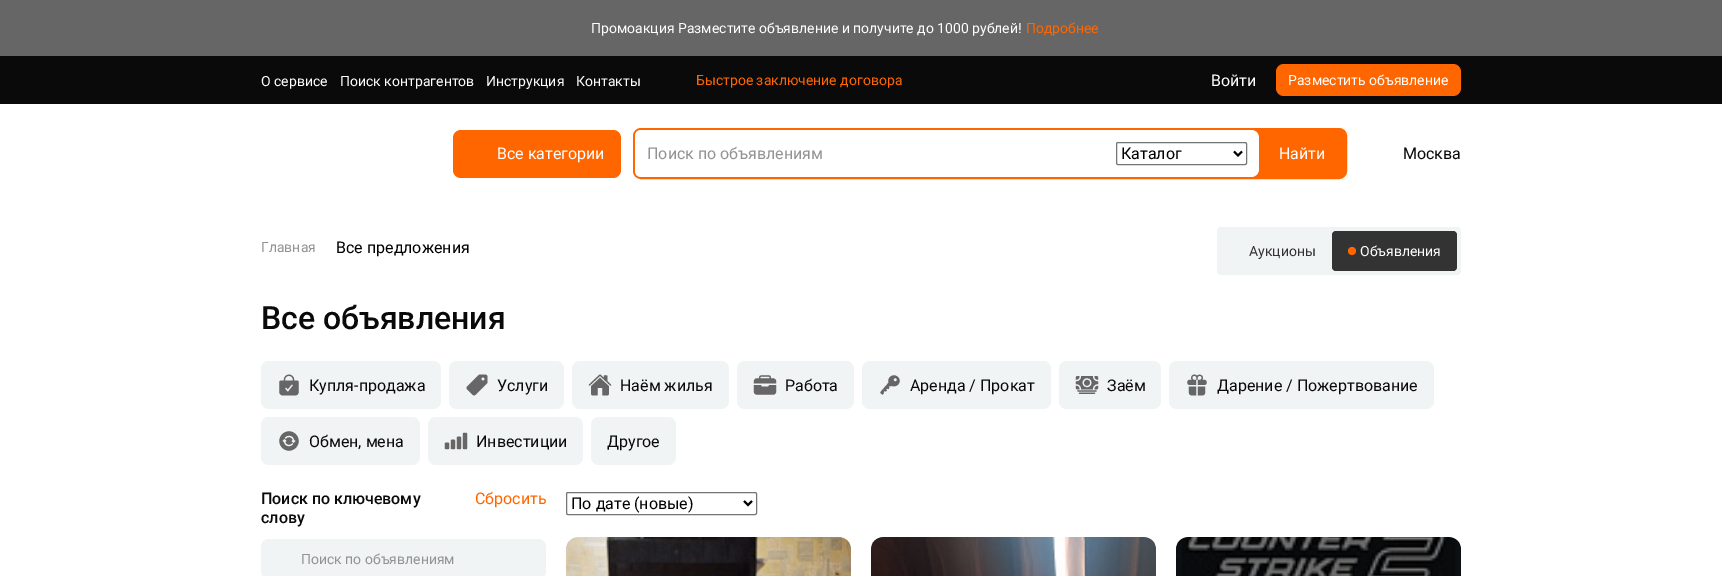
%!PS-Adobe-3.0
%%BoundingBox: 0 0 1722 576
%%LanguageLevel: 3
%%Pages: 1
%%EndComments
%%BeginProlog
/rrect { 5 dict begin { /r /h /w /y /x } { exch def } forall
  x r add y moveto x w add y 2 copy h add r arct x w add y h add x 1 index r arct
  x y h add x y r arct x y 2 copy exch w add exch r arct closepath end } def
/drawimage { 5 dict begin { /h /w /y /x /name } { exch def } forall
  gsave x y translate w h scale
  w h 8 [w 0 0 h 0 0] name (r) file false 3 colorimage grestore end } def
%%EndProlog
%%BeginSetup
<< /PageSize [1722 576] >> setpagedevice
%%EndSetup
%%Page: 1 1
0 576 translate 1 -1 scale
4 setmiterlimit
1 setgray
0 0 1722 576 rectfill
0.4 setgray
0 0 1722 56 rectfill
0.039 setgray
0 56 1722 48 rectfill
1 0.4 0 setrgbcolor
1276 64 185 32 8 rrect fill
453 130 168 48 8 rrect fill
634 129 712 49 7 rrect gsave fill grestore
2 setlinewidth
stroke
1 setgray
newpath 641 130 moveto 1251 130 lineto 1255.5 130 1259 133.5 1259 138 curveto 1259 169 lineto 1259 173.5 1255.5 177 1251 177 curveto 641 177 lineto 637.5 177 635 174.5 635 171 curveto 635 136 lineto 635 132.5 637.5 130 641 130 curveto closepath fill
0.463 setgray
1 setlinewidth
1116.5 142.5 130 22 1.5 rrect stroke
0 setgray
2 setlinewidth
newpath 1234 151.5 moveto 1238 155.5 lineto 1242 151.5 lineto stroke
0.945 0.957 0.957 setrgbcolor
1217 227 244 48 4 rrect fill
0.2 setgray
1332 231 125 40 4 rrect fill
1 0.4 0 setrgbcolor
newpath 1352 251 4 0 360 arc closepath fill
0.945 0.957 0.957 setrgbcolor
261 361 180 48 8 rrect fill
(images/1.raw) 279 374 20 22 drawimage
449 361 115 48 8 rrect fill
(images/2.raw) 466 374 22 22 drawimage
572 361 157 48 8 rrect fill
(images/3.raw) 588 374 24 22 drawimage
737 361 117 48 8 rrect fill
(images/4.raw) 753 375 24 20 drawimage
862 361 189 48 8 rrect fill
(images/5.raw) 880 375 20 20 drawimage
1059 361 102 48 8 rrect fill
(images/6.raw) 1075 376 24 18 drawimage
1169 361 265 48 8 rrect fill
(images/7.raw) 1187 374 20 22 drawimage
261 417 159 48 8 rrect fill
(images/8.raw) 279 431 20 20 drawimage
428 417 155 48 8 rrect fill
(images/9.raw) 444 432 24 18 drawimage
591 417 85 48 8 rrect fill
261 539 285 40 8 rrect fill
0.463 setgray
1 setlinewidth
566.5 492.5 190 22 1.5 rrect stroke
0 setgray
2 setlinewidth
newpath 744 501 moveto 748 505 lineto 752 501 lineto stroke
(images/10.raw) 566 537 285 39 drawimage
(images/11.raw) 871 537 285 39 drawimage
(images/12.raw) 1176 537 285 39 drawimage
/Roboto-Regular [14 0 0 -14 0 0] selectfont
1 setgray
591 33 moveto (Промоакция Разместите объявление и получите до 1000 рублей!) show
1 0.4 0 setrgbcolor
1026 33 moveto (Подробнее) show
1 setgray
261 86 moveto (О сервисе) show
340 86 moveto (Поиск контрагентов) show
486 86 moveto (Инструкция) show
576 86 moveto (Контакты) show
1 0.4 0 setrgbcolor
696 85 moveto (Быстрое заключение договора) show
/Roboto-Regular [16 0 0 -16 0 0] selectfont
1 setgray
1211 86 moveto (Войти) show
/Roboto-Regular [14 0 0 -14 0 0] selectfont
1288 85 moveto (Разместить объявление) show
/Roboto-Regular [16 0 0 -16 0 0] selectfont
497 159 moveto (Все категории) show
0.576 setgray
647 159 moveto (Поиск по объявлениям) show
0 setgray
1121 159 moveto (Каталог) show
1 setgray
1279 159 moveto (Найти) show
0.039 setgray
1403 159 moveto (Москва) show
/Roboto-Regular [14 0 0 -14 0 0] selectfont
0.576 setgray
261 252 moveto (Главная) show
/Roboto-Regular [16 0 0 -16 0 0] selectfont
0 setgray
336 253 moveto (Все предложения) show
/Roboto-Regular [14 0 0 -14 0 0] selectfont
0.2 setgray
1249 256 moveto (Аукционы) show
1 setgray
1360 256 moveto (Объявления) show
/Roboto-Medium [32 0 0 -32 0 0] selectfont
0.039 setgray
261 329 moveto (Все объявления) show
/Roboto-Regular [16 0 0 -16 0 0] selectfont
309 391 moveto (Купля-продажа) show
497 391 moveto (Услуги) show
620 391 moveto (Наём жилья) show
785 391 moveto (Работа) show
910 391 moveto (Аренда / Прокат) show
1107 391 moveto (Заём) show
1217 391 moveto (Дарение / Пожертвование) show
309 447 moveto (Обмен, мена) show
476 447 moveto (Инвестиции) show
607 447 moveto (Другое) show
/Roboto-Medium [16 0 0 -16 0 0] selectfont
261 504 moveto (Поиск по ключевому) show
261 523 moveto (слову) show
/Roboto-Regular [14 0 0 -14 0 0] selectfont
0.576 setgray
301 564 moveto (Поиск по объявлениям) show
/Roboto-Regular [16 0 0 -16 0 0] selectfont
1 0.4 0 setrgbcolor
475 504 moveto (Сбросить) show
0 setgray
571 509 moveto (По дате \(новые\)) show
showpage
%%EOF
